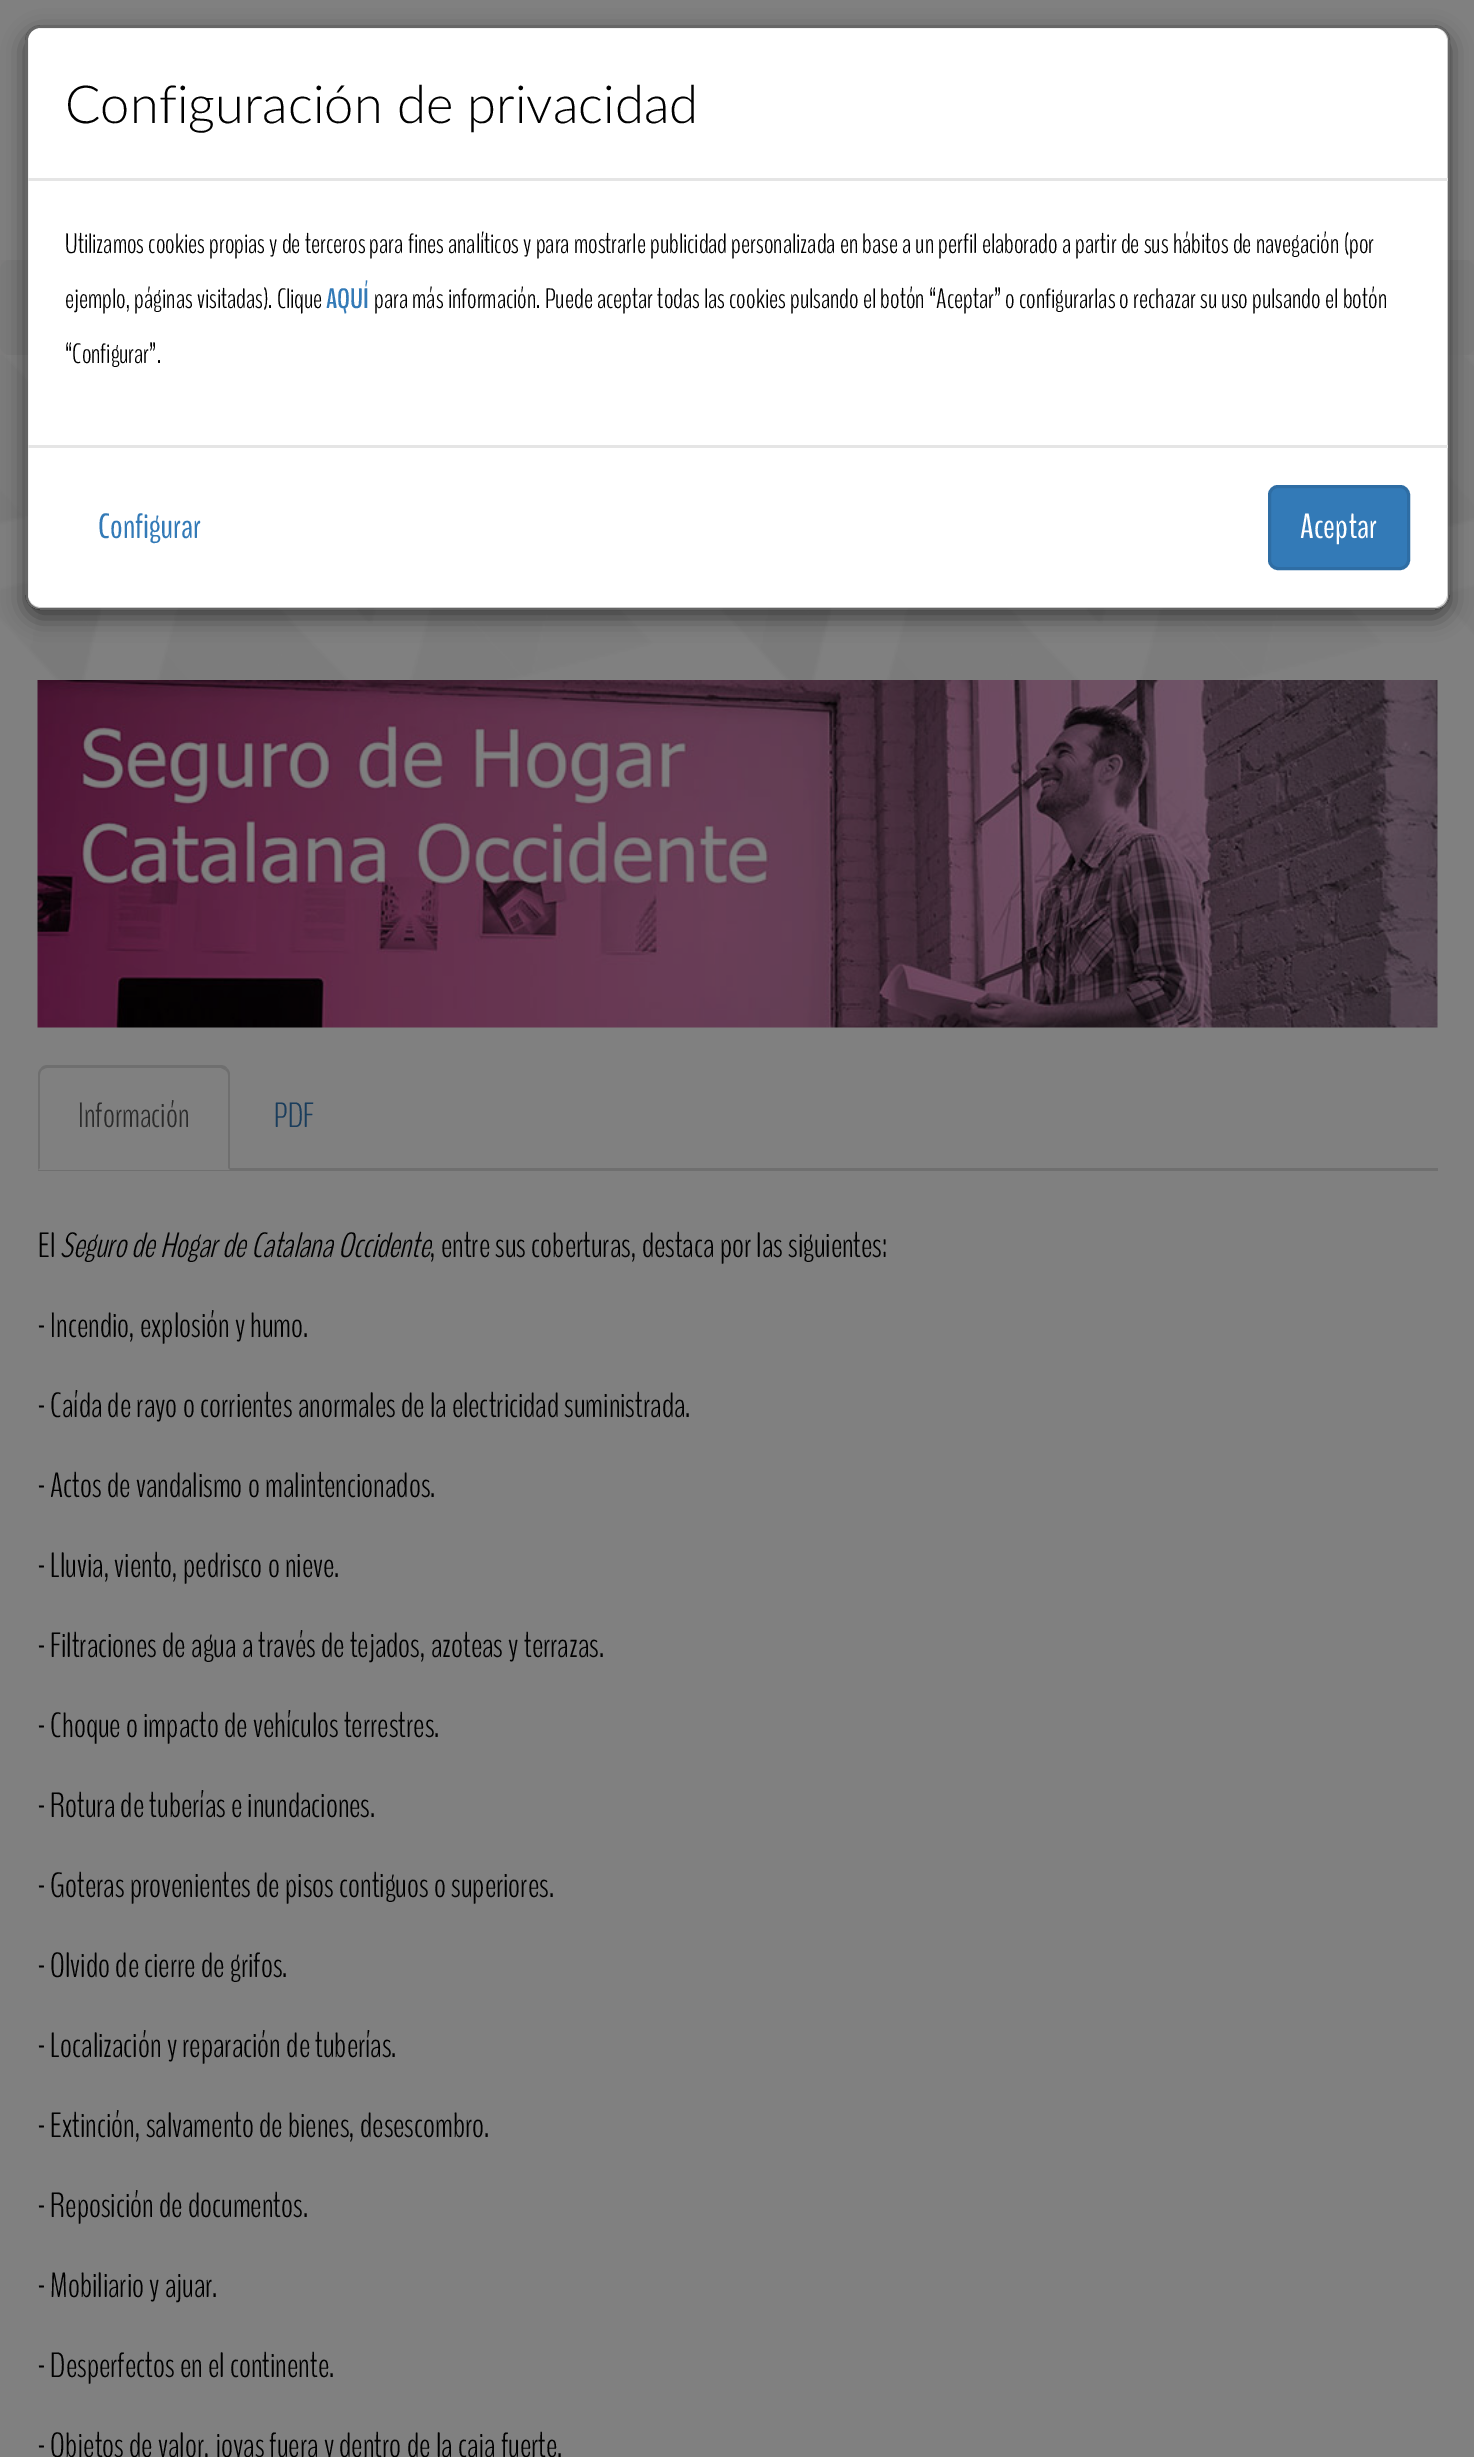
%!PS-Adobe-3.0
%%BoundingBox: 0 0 1474 2457
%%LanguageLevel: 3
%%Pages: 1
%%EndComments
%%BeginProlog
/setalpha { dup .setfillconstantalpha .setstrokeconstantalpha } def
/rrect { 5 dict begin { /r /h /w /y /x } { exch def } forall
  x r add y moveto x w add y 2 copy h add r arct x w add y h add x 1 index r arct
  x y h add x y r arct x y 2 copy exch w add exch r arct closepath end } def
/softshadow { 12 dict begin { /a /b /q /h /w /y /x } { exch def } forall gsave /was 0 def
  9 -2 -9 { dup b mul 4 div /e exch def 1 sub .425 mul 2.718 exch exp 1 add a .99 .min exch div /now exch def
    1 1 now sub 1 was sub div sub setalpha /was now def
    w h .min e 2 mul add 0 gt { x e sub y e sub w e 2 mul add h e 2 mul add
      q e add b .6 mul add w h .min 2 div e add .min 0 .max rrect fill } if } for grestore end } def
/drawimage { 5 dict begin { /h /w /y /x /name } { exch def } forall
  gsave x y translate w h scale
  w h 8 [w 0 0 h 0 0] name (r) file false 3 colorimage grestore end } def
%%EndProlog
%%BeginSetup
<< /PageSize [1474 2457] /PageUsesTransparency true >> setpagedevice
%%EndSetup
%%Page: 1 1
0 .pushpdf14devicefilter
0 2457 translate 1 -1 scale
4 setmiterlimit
0.502 setgray
0 0 1474 2457 rectfill
0.494 0.49 0.49 setrgbcolor
0 260 1474 95 rectfill
0.482 setgray
0 260 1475 95 10 rrect fill
(images/1.raw) 0 355 1474 325 drawimage
gsave
newpath 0 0 moveto 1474 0 lineto 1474 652 lineto 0 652 lineto closepath 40 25 moveto 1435 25 lineto 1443.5 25 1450 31.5 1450 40 curveto 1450 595 lineto 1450 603.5 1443.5 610 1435 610 curveto 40 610 lineto 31.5 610 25 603.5 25 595 curveto 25 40 lineto 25 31.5 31.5 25 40 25 curveto closepath eoclip newpath
0 setgray
25 33 1425 585 15 11 0.5 softshadow
grestore
1 setgray
28 28 1420 580 13 rrect fill
0.2 setalpha
0 setgray
3 setlinewidth
26.5 26.5 1422 582 13.5 rrect stroke
1 setalpha
0.898 setgray
28 178 1420 3 rectfill
28 445 1420 3 rectfill
0.2 0.478 0.718 setrgbcolor
1269.5 486.5 139 82 8.5 rrect gsave fill grestore
0.18 0.427 0.643 setrgbcolor
stroke
(images/2.raw) 37 680 1401 348 drawimage
0.435 setgray
38 1168 1400 3 rectfill
0.502 setgray
newpath 48 1065 moveto 220 1065 lineto 225.5 1065 230 1069.5 230 1075 curveto 230 1170 lineto 38 1170 lineto 38 1075 lineto 38 1069.5 42.5 1065 48 1065 curveto closepath fill
0.435 setgray
newpath 48 1065 moveto 45 1065 42 1066 41 1068 curveto 42 1070 lineto 44 1069 45 1068 47 1068 curveto 221 1068 lineto 225 1070 lineto 227 1068 lineto 226 1066 223 1065 220 1065 curveto closepath fill
newpath 230 1170 moveto 230 1075 lineto 230 1072 229 1070 227 1068 curveto 225 1070 lineto 227 1071 228 1073 228 1075 curveto 228 1168 lineto closepath fill
newpath 41 1068 moveto 39 1070 38 1072 38 1075 curveto 38 1170 lineto 40 1168 lineto 40 1075 lineto 40 1073 41 1071 42 1070 curveto closepath fill
/Lato-Light [52.5 0 0 -52.5 0 0] selectfont
0 setgray
65 123 moveto (Configuración de privacidad) show
/BenchNine-Light [28 0 0 -28 0 0] selectfont
65 253 moveto (Utilizamos cookies propias y de terceros para fines analíticos y para mostrarle publicidad personalizada en base a un perfil elaborado a partir de sus hábitos de navegación \(por) show
65 308 moveto (ejemplo, páginas visitadas\). Clique) show
/BenchNine-Bold [28 0 0 -28 0 0] selectfont
0.2 0.478 0.718 setrgbcolor
326 308 moveto (AQUÍ) show
/BenchNine-Light [28 0 0 -28 0 0] selectfont
0 setgray
374 308 moveto (para más información. Puede aceptar todas las cookies pulsando el botón “Aceptar” o configurarlas o rechazar su uso pulsando el botón) show
65 363 moveto (“Configurar”.) show
/BenchNine-Regular [35 0 0 -35 0 0] selectfont
0.2 0.478 0.718 setrgbcolor
98 538 moveto (Configurar) show
1 setgray
1300 538 moveto (Aceptar) show
/BenchNine-Light [35 0 0 -35 0 0] selectfont
0.169 setgray
78 1127 moveto (Información) show
0.102 0.239 0.361 setrgbcolor
274 1127 moveto (PDF) show
0 setgray
38 1257 moveto (El) show
/BenchNine-LightItalic [35 0 0 -35 0 0] selectfont
60 1257 moveto (Seguro de Hogar de Catalana Occidente) show
/BenchNine-Light [35 0 0 -35 0 0] selectfont
430 1257 moveto (, entre sus coberturas, destaca por las siguientes:) show
38 1337 moveto (- Incendio, explosión y humo.) show
38 1417 moveto (- Caída de rayo o corrientes anormales de la electricidad suministrada.) show
38 1497 moveto (- Actos de vandalismo o malintencionados.) show
38 1577 moveto (- Lluvia, viento, pedrisco o nieve.) show
38 1657 moveto (- Filtraciones de agua a través de tejados, azoteas y terrazas.) show
38 1737 moveto (- Choque o impacto de vehículos terrestres.) show
38 1817 moveto (- Rotura de tuberías e inundaciones.) show
38 1897 moveto (- Goteras provenientes de pisos contiguos o superiores.) show
38 1977 moveto (- Olvido de cierre de grifos.) show
38 2057 moveto (- Localización y reparación de tuberías.) show
38 2137 moveto (- Extinción, salvamento de bienes, desescombro.) show
38 2217 moveto (- Reposición de documentos.) show
38 2297 moveto (- Mobiliario y ajuar.) show
38 2377 moveto (- Desperfectos en el continente.) show
38 2457 moveto (- Objetos de valor, joyas fuera y dentro de la caja fuerte.) show
.poppdf14devicefilter showpage
%%EOF
